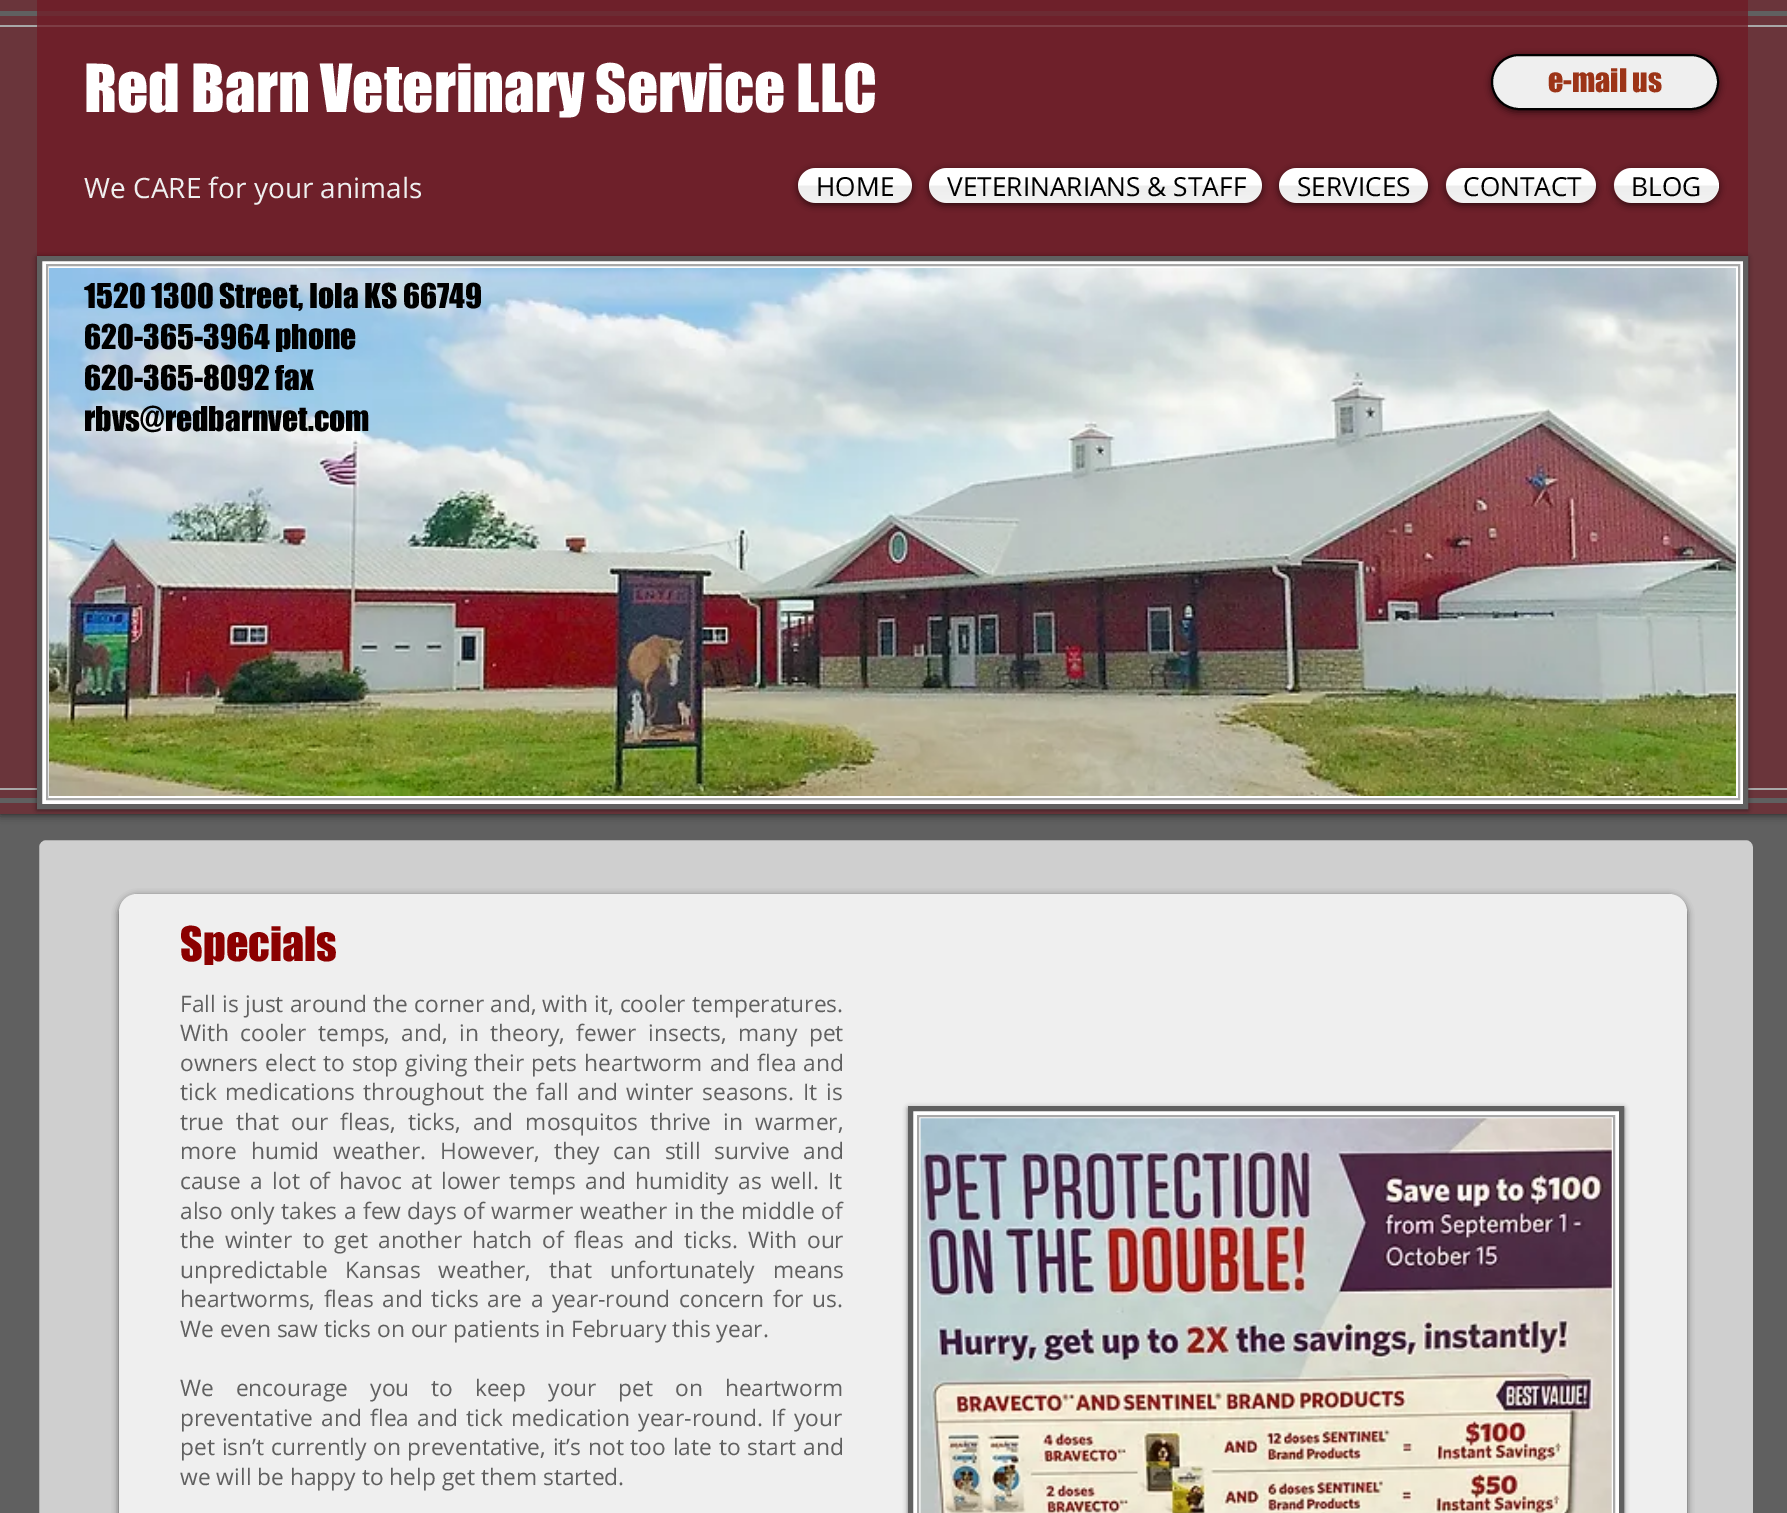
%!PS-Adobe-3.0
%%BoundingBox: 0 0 1787 1513
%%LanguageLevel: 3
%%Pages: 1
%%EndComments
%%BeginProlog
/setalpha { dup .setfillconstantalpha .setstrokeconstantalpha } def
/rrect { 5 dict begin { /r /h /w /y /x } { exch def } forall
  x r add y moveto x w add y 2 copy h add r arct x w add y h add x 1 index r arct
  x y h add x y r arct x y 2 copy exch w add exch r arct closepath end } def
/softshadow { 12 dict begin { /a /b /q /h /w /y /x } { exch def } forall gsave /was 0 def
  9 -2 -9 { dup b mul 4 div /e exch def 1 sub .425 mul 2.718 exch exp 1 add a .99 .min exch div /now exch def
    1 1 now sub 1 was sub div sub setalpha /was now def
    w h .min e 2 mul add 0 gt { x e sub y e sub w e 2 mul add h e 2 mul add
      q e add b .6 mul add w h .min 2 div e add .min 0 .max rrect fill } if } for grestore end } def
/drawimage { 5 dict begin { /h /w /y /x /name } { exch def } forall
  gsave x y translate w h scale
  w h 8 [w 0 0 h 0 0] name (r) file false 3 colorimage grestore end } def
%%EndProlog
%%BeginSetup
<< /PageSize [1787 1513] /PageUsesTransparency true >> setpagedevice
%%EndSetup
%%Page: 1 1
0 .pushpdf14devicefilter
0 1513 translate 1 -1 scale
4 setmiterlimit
0.376 setgray
0 0 1787 1513 rectfill
gsave
newpath 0 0 moveto 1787 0 lineto 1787 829 lineto 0 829 lineto closepath 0 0 moveto 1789 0 lineto 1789 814 lineto 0 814 lineto closepath eoclip newpath
0 setgray
0 0 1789 814 0 4.5 0.7 softshadow
grestore
0.61 setalpha
0.439 0.098 0.141 setrgbcolor
0 0 1787 814 rectfill
1 setalpha
0.376 setgray
0 11 1787 5 rectfill
0 798 1787 5 rectfill
0.659 setgray
0 25 1787 2 rectfill
0 788 1787 2 rectfill
0.75 setalpha
0.439 0.098 0.141 setrgbcolor
37 0 1711 256 rectfill
1 setalpha
0 setgray
1491 56 228 56 28 3.5 0.6 softshadow
0.937 setgray
1492 55 226 54 27 rrect gsave fill grestore
0 setgray
2 setlinewidth
stroke
798 170 114 35 17.5 3.5 0.6 softshadow
1 setgray
798 168 114 35 17.5 rrect fill
(images/1.raw) 798 168 114 35 drawimage
0 setgray
929 170 333 35 17.5 3.5 0.6 softshadow
1 setgray
929 168 333 35 17.5 rrect fill
(images/2.raw) 929 168 333 35 drawimage
0 setgray
1279 170 149 35 17.5 3.5 0.6 softshadow
1 setgray
1279 168 149 35 17.5 rrect fill
(images/3.raw) 1279 168 149 35 drawimage
0 setgray
1446 170 150 35 17.5 3.5 0.6 softshadow
1 setgray
1446 168 150 35 17.5 rrect fill
(images/4.raw) 1445 168 151 35 drawimage
0 setgray
1614 170 105 35 17.5 3.5 0.6 softshadow
1 setgray
1614 168 105 35 17.5 rrect fill
(images/5.raw) 1613 168 105 35 drawimage
0 setgray
37 257 1711 553 0 2.5 0.5 softshadow
1 setgray
newpath 39.5 258.5 moveto 1745.5 258.5 lineto 1745.5 806.5 lineto 39.5 806.5 lineto closepath gsave fill grestore
0.376 setgray
5 setlinewidth
stroke
(images/6.raw) 49 268 1687 528 drawimage
0.659 setgray
2 setlinewidth
47 265 1692 534 rectstroke
0.812 setgray
38 839 1716 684 8 rrect gsave fill grestore
0.376 setgray
stroke
0 setgray
119 896 1568 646 18 3.5 0.6 softshadow
0.937 setgray
119 894 1568 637 18 rrect fill
0 setgray
908 1108 716 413 0 2.5 0.5 softshadow
1 setgray
newpath 910.5 1108.5 moveto 1621.5 1108.5 lineto 1621.5 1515.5 lineto 910.5 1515.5 lineto closepath gsave fill grestore
0.376 setgray
5 setlinewidth
stroke
(images/7.raw) 920 1118 692 395 drawimage
0.659 setgray
2 setlinewidth
918 1116 696 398 rectstroke
/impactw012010-Regular [61.25 0 0 -61.25 0 0] selectfont
1 setgray
84 112 moveto (Red Barn Veterinary Service LLC) show
/impactw012010-Regular [30 0 0 -30 0 0] selectfont
0.612 0.204 0.09 setrgbcolor
1548 92 moveto (e-mail us) show
/OpenSans-Regular [28 0 0 -28 0 0] selectfont
0.937 setgray
84 198 moveto (We CARE for your animals) show
/OpenSans-Regular [26.25 0 0 -26.25 0 0] selectfont
0 setgray
816 196 moveto (HOME) show
947 196 moveto (VETERINARIANS & STAFF) show
1297 196 moveto (SERVICES) show
1463 196 moveto (CONTACT) show
1631 196 moveto (BLOG) show
/impactw012010-Regular [31.5 0 0 -31.5 0 0] selectfont
84 308 moveto (1520 1300 Street, Iola KS 66749) show
84 349 moveto (620-365-3964 phone) show
84 390 moveto (620-365-8092 fax) show
84 431 moveto (rbvs@redbarnvet.com) show
/impactw012010-Regular [44 0 0 -44 0 0] selectfont
0.545 0 0 setrgbcolor
180 961 moveto (Specials) show
/OpenSans-Regular [22.75 0 0 -22.75 0 0] selectfont
0.376 setgray
180 1012 moveto 0.25 0 32 (Fall is just around the corner and, with it, cooler temperatures.) widthshow
180 1041 moveto 5.5 0 32 (With cooler temps, and, in theory, fewer insects, many pet) widthshow
180 1071 moveto 1.25 0 32 (owners elect to stop giving their pets heartworm and flea and) widthshow
180 1100 moveto 2.75 0 32 (tick medications throughout the fall and winter seasons. It is) widthshow
180 1130 moveto 6.25 0 32 (true that our fleas, ticks, and mosquitos thrive in warmer,) widthshow
180 1159 moveto 7.75 0 32 (more humid weather. However, they can still survive and) widthshow
180 1189 moveto 3.25 0 32 (cause a lot of havoc at lower temps and humidity as well. It) widthshow
180 1219 moveto 0.6 0 32 (also only takes a few days of warmer weather in the middle of) widthshow
180 1248 moveto 4.25 0 32 (the winter to get another hatch of fleas and ticks. With our) widthshow
180 1278 moveto 12 0 32 (unpredictable Kansas weather, that unfortunately means) widthshow
180 1307 moveto 2.75 0 32 (heartworms, fleas and ticks are a year-round concern for us.) widthshow
180 1337 moveto (We even saw ticks on our patients in February this year.) show
180 1396 moveto 16 0 32 (We encourage you to keep your pet on heartworm) widthshow
180 1426 moveto 2.5 0 32 (preventative and flea and tick medication year-round. If your) widthshow
180 1455 moveto 0.9 0 32 (pet isn’t currently on preventative, it’s not too late to start and) widthshow
180 1485 moveto (we will be happy to help get them started.) show
.poppdf14devicefilter showpage
%%EOF
